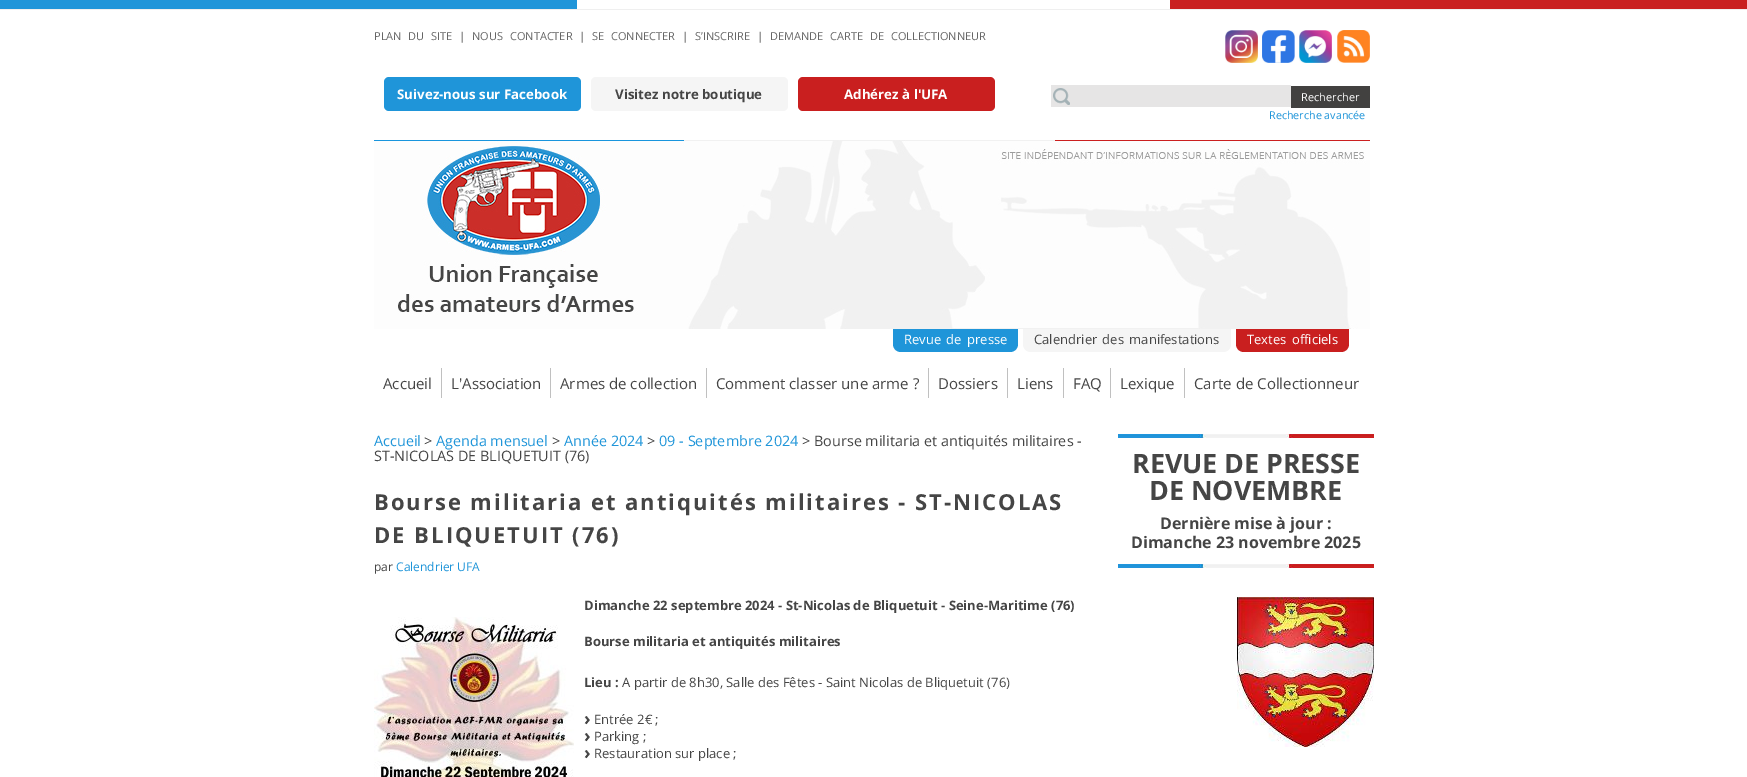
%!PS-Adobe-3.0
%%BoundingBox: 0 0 1747 777
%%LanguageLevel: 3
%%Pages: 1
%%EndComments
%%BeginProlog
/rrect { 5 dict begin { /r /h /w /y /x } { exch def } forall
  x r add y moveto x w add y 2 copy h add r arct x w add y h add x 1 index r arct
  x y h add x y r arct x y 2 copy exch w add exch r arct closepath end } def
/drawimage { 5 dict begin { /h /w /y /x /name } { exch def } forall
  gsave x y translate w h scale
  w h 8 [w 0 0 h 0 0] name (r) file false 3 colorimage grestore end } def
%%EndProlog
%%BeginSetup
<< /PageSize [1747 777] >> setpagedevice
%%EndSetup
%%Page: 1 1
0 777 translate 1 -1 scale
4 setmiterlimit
1 setgray
0 0 1747 777 rectfill
0.937 setgray
0 9 1747 1 rectfill
0.122 0.584 0.851 setrgbcolor
0 0 577 9 rectfill
0.788 0.122 0.122 setrgbcolor
1170 0 577 9 rectfill
(images/1.raw) 1225 30 33 33 drawimage
(images/2.raw) 1262 30 33 33 drawimage
(images/3.raw) 1299 30 33 33 drawimage
(images/4.raw) 1337 30 33 33 drawimage
0.122 0.584 0.851 setrgbcolor
384 77 197 34 5 rrect fill
0.961 setgray
591 77 197 34 5 rrect fill
0.788 0.122 0.122 setrgbcolor
798 77 197 34 5 rrect fill
0.902 0.898 0.898 setrgbcolor
1051 85 240 22 rectfill
(images/5.raw) 1053 88 17 17 drawimage
0.259 0.255 0.251 setrgbcolor
1291 86 79 22 rectfill
(images/6.raw) 374 140 996 189 drawimage
0.122 0.584 0.851 setrgbcolor
newpath 893 329 moveto 1018 329 lineto 1018 344 lineto 1018 348.5 1014.5 352 1010 352 curveto 901 352 lineto 896.5 352 893 348.5 893 344 curveto closepath fill
0.961 setgray
newpath 1023 329 moveto 1231 329 lineto 1231 344 lineto 1231 348.5 1227.5 352 1223 352 curveto 1031 352 lineto 1026.5 352 1023 348.5 1023 344 curveto closepath fill
0.788 0.122 0.122 setrgbcolor
newpath 1236 329 moveto 1349 329 lineto 1349 344 lineto 1349 348.5 1345.5 352 1341 352 curveto 1244 352 lineto 1239.5 352 1236 348.5 1236 344 curveto closepath fill
0.753 setgray
441 368 1 30 rectfill
550 368 1 30 rectfill
706 368 1 30 rectfill
928 368 1 30 rectfill
1007 368 1 30 rectfill
1063 368 1 30 rectfill
1110 368 1 30 rectfill
1184 368 1 30 rectfill
(images/7.raw) 1118 434 256 4 drawimage
(images/7.raw) 1118 564 256 4 drawimage
(images/8.raw) 374 617 200 160 drawimage
(images/9.raw) 1237 597 137 150 drawimage
/OpenSans-Regular [11 0 0 -11 0 0] selectfont
0.4 setgray
374 40 moveto 4 0 32 (PLAN DU SITE) widthshow
0.271 setgray
459 40 moveto (|) show
0.4 setgray
472 40 moveto 4 0 32 (NOUS CONTACTER) widthshow
0.271 setgray
579 40 moveto (|) show
0.4 setgray
592 40 moveto 4 0 32 (SE CONNECTER) widthshow
0.271 setgray
682 40 moveto (|) show
0.4 setgray
695 40 moveto (S’INSCRIRE) show
0.271 setgray
757 40 moveto (|) show
0.4 setgray
770 40 moveto 4 0 32 (DEMANDE CARTE DE COLLECTIONNEUR) widthshow
/OpenSans-Bold [13.3 0 0 -13.3 0 0] selectfont
1 setgray
397 99 moveto (Suivez-nous sur Facebook) show
0.271 setgray
615 99 moveto (Visitez notre boutique) show
1 setgray
844 99 moveto (Adhérez à l'UFA) show
/OpenSans-Regular [11 0 0 -11 0 0] selectfont
1301 101 moveto (Rechercher) show
/OpenSans-Regular [10.75 0 0 -10.75 0 0] selectfont
0.122 0.584 0.851 setrgbcolor
1269 119 moveto (Recherche avancée) show
/OpenSans-Regular [13 0 0 -13 0 0] selectfont
1 setgray
904 344 moveto 2 0 32 (Revue de presse) widthshow
0.271 setgray
1034 344 moveto 2 0 32 (Calendrier des manifestations) widthshow
1 setgray
1247 344 moveto 2 0 32 (Textes officiels) widthshow
/OpenSans-Regular [15 0 0 -15 0 0] selectfont
0.271 setgray
383 389 moveto (Accueil) show
451 389 moveto (L'Association) show
560 389 moveto (Armes de collection) show
716 389 moveto (Comment classer une arme ?) show
938 389 moveto (Dossiers) show
1017 389 moveto (Liens) show
1073 389 moveto (FAQ) show
1120 389 moveto (Lexique) show
1194 389 moveto (Carte de Collectionneur) show
/OpenSans-Regular [14.4 0 0 -14.4 0 0] selectfont
0.122 0.584 0.851 setrgbcolor
374 446 moveto (Accueil) show
0.271 setgray
424 446 moveto (>) show
0.122 0.584 0.851 setrgbcolor
436 446 moveto (Agenda mensuel) show
0.271 setgray
552 446 moveto (>) show
0.122 0.584 0.851 setrgbcolor
564 446 moveto (Année 2024) show
0.271 setgray
647 446 moveto (>) show
0.122 0.584 0.851 setrgbcolor
659 446 moveto (09 - Septembre 2024) show
0.271 setgray
802 446 moveto (> Bourse militaria et antiquités militaires -) show
374 461 moveto (ST-NICOLAS DE BLIQUETUIT \(76\)) show
/OpenSans-Bold [22 0 0 -22 0 0] selectfont
374 510 moveto 2 0 (Bourse militaria et antiquités militaires - ST-NICOLAS) ashow
374 543 moveto 2 0 (DE BLIQUETUIT \(76\)) ashow
/OpenSans-Regular [12 0 0 -12 0 0] selectfont
374 571 moveto (par) show
0.122 0.584 0.851 setrgbcolor
396 571 moveto (Calendrier UFA) show
/OpenSans-Bold [26.75 0 0 -26.75 0 0] selectfont
0.271 setgray
1132 473 moveto (REVUE DE PRESSE) show
1149 500 moveto (DE NOVEMBRE) show
/OpenSans-Bold [16 0 0 -16 0 0] selectfont
1160 529 moveto (Dernière mise à jour :) show
1131 548 moveto (Dimanche 23 novembre 2025) show
/OpenSans-Bold [13 0 0 -13 0 0] selectfont
584 610 moveto (Dimanche 22 septembre 2024 - St-Nicolas de Bliquetuit - Seine-Maritime \(76\)) show
584 646 moveto (Bourse militaria et antiquités militaires) show
584 687 moveto (Lieu :) show
/OpenSans-Regular [13 0 0 -13 0 0] selectfont
622 687 moveto (A partir de 8h30, Salle des Fêtes - Saint Nicolas de Bliquetuit \(76\)) show
/OpenSans-Bold [18 0 0 -18 0 0] selectfont
584 725 moveto (›) show
/OpenSans-Regular [13 0 0 -13 0 0] selectfont
594 724 moveto (Entrée 2€ ;) show
/OpenSans-Bold [18 0 0 -18 0 0] selectfont
584 742 moveto (›) show
/OpenSans-Regular [13 0 0 -13 0 0] selectfont
594 741 moveto (Parking ;) show
/OpenSans-Bold [18 0 0 -18 0 0] selectfont
584 759 moveto (›) show
/OpenSans-Regular [13 0 0 -13 0 0] selectfont
594 758 moveto (Restauration sur place ;) show
showpage
%%EOF
